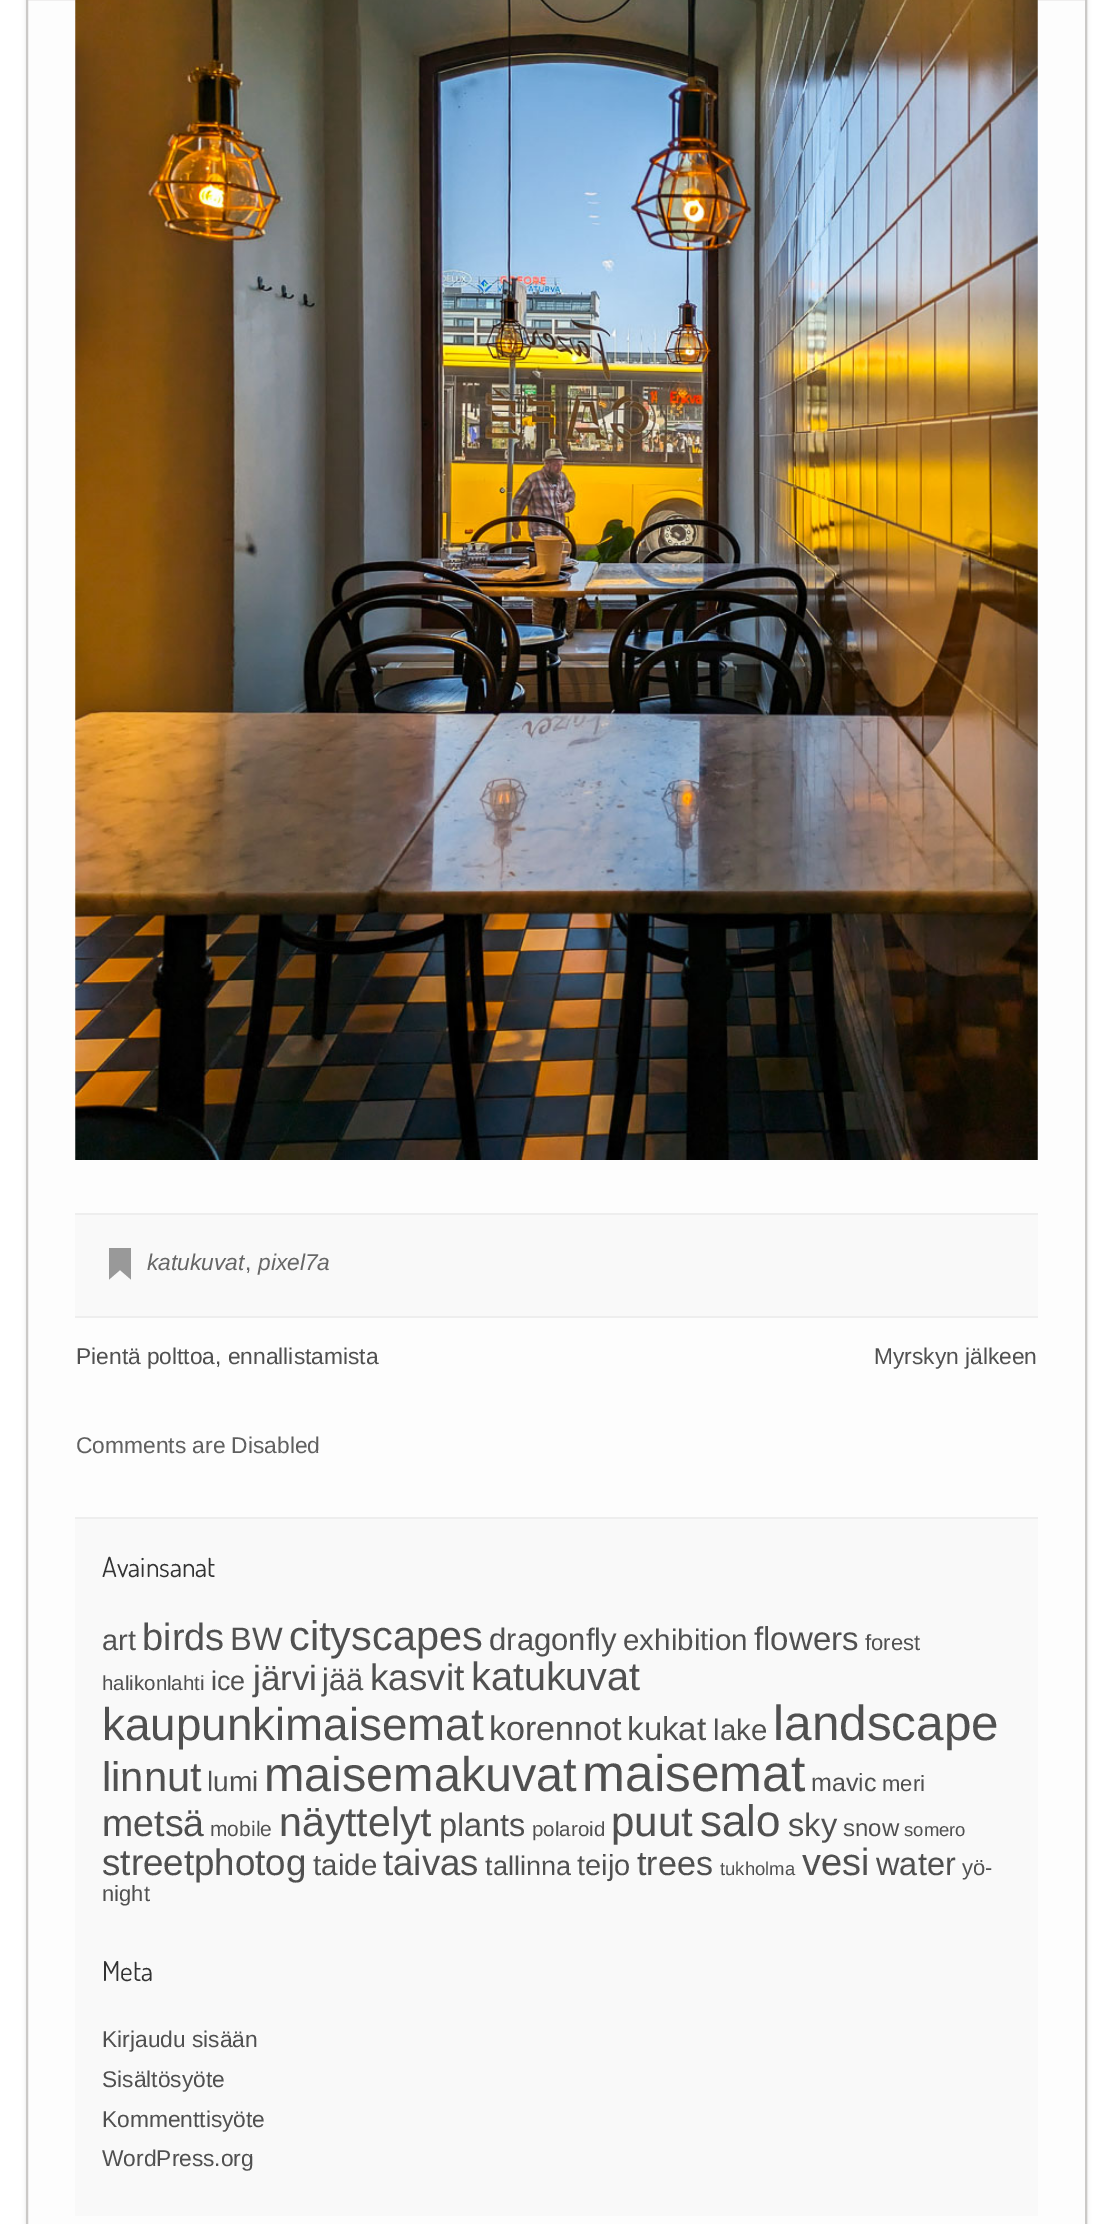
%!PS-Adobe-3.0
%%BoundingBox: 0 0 1112 2224
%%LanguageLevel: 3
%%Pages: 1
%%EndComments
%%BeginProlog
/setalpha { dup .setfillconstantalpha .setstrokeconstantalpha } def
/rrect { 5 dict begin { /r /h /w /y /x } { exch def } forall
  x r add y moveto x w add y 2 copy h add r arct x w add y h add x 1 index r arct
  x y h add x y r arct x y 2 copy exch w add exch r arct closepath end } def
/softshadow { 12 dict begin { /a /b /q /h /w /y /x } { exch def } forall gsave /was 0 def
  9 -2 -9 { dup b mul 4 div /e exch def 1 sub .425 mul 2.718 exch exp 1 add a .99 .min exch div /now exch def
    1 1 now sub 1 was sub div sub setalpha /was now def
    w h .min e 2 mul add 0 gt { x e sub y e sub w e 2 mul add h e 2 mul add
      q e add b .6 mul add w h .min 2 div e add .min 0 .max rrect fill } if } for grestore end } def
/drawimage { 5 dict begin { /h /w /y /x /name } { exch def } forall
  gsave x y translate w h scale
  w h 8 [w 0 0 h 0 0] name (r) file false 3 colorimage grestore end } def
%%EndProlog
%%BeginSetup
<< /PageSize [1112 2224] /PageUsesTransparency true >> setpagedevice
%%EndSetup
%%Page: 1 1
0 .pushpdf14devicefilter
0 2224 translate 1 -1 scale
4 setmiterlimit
1 setgray
0 0 1112 2224 rectfill
0 setgray
26 -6 1061 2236 0 2 0.1 softshadow
0.992 setgray
newpath 27 -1 moveto 1086 -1 lineto 1086 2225 lineto 27 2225 lineto closepath gsave fill grestore
0.796 0.788 0.78 setrgbcolor
2 setlinewidth
stroke
(images/1.raw) 75 0 963 1160 drawimage
0.976 setgray
75 1215 963 101 rectfill
0.933 setgray
75 1213 963 2 rectfill
75 1316 963 2 rectfill
0.6 setgray
newpath 109 1248 moveto 109 1279.5 lineto 120 1270 lineto 131 1279.5 lineto 131 1248 lineto closepath fill
0.976 setgray
75 1519 963 697 rectfill
0.933 setgray
75 1517 963 2 rectfill
/LiberationSans-Italic [22.75 0 0 -22.75 0 0] selectfont
0.4 setgray
147 1270 moveto (katukuvat) show
/LiberationSans-Regular [22.75 0 0 -22.75 0 0] selectfont
245 1270 moveto (,) show
/LiberationSans-Italic [22.75 0 0 -22.75 0 0] selectfont
258 1270 moveto (pixel7a) show
/LiberationSans-Regular [22.75 0 0 -22.75 0 0] selectfont
0.314 setgray
76 1364 moveto (Pientä polttoa, ennallistamista) show
874 1364 moveto (Myrskyn jälkeen) show
0.376 setgray
76 1453 moveto (Comments are Disabled) show
/Dosis-Regular [27.5 0 0 -27.5 0 0] selectfont
0.2 setgray
102 1577 moveto (Avainsanat) show
/LiberationSans-Regular [29 0 0 -29 0 0] selectfont
0.314 setgray
102 1650 moveto (art) show
/LiberationSans-Regular [38 0 0 -38 0 0] selectfont
142 1650 moveto (birds) show
/LiberationSans-Regular [32.5 0 0 -32.5 0 0] selectfont
230 1650 moveto (BW) show
/LiberationSans-Regular [41.5 0 0 -41.5 0 0] selectfont
289 1650 moveto (cityscapes) show
/LiberationSans-Regular [31 0 0 -31 0 0] selectfont
489 1650 moveto (dragonfly) show
/LiberationSans-Regular [29.5 0 0 -29.5 0 0] selectfont
623 1650 moveto (exhibition) show
/LiberationSans-Regular [33 0 0 -33 0 0] selectfont
754 1650 moveto (flowers) show
/LiberationSans-Regular [22 0 0 -22 0 0] selectfont
865 1650 moveto (forest) show
/LiberationSans-Regular [20.5 0 0 -20.5 0 0] selectfont
102 1690 moveto (halikonlahti) show
/LiberationSans-Regular [27 0 0 -27 0 0] selectfont
211 1690 moveto (ice) show
/LiberationSans-Regular [35 0 0 -35 0 0] selectfont
253 1690 moveto (järvi) show
/LiberationSans-Regular [31 0 0 -31 0 0] selectfont
322 1690 moveto (jää) show
/LiberationSans-Regular [36.75 0 0 -36.75 0 0] selectfont
370 1690 moveto (kasvit) show
/LiberationSans-Regular [39.5 0 0 -39.5 0 0] selectfont
471 1690 moveto (katukuvat) show
/LiberationSans-Regular [45.75 0 0 -45.75 0 0] selectfont
102 1740 moveto (kaupunkimaisemat) show
/LiberationSans-Regular [34 0 0 -34 0 0] selectfont
489 1740 moveto (korennot) show
/LiberationSans-Regular [33 0 0 -33 0 0] selectfont
627 1740 moveto (kukat) show
/LiberationSans-Regular [29.5 0 0 -29.5 0 0] selectfont
713 1740 moveto (lake) show
/LiberationSans-Regular [49.5 0 0 -49.5 0 0] selectfont
773 1740 moveto (landscape) show
/LiberationSans-Regular [41.5 0 0 -41.5 0 0] selectfont
102 1791 moveto (linnut) show
/LiberationSans-Regular [28 0 0 -28 0 0] selectfont
207 1791 moveto (lumi) show
/LiberationSans-Regular [48.5 0 0 -48.5 0 0] selectfont
264 1791 moveto (maisemakuvat) show
/LiberationSans-Regular [51.5 0 0 -51.5 0 0] selectfont
582 1791 moveto (maisemat) show
/LiberationSans-Regular [25 0 0 -25 0 0] selectfont
811 1791 moveto (mavic) show
/LiberationSans-Regular [22 0 0 -22 0 0] selectfont
882 1791 moveto (meri) show
/LiberationSans-Regular [37.5 0 0 -37.5 0 0] selectfont
102 1836 moveto (metsä) show
/LiberationSans-Regular [21 0 0 -21 0 0] selectfont
210 1836 moveto (mobile) show
/LiberationSans-Regular [41 0 0 -41 0 0] selectfont
279 1836 moveto (näyttelyt) show
/LiberationSans-Regular [32.5 0 0 -32.5 0 0] selectfont
439 1836 moveto (plants) show
/LiberationSans-Regular [20.5 0 0 -20.5 0 0] selectfont
532 1836 moveto (polaroid) show
/LiberationSans-Regular [42 0 0 -42 0 0] selectfont
611 1836 moveto (puut) show
/LiberationSans-Regular [44 0 0 -44 0 0] selectfont
700 1836 moveto (salo) show
/LiberationSans-Regular [32.5 0 0 -32.5 0 0] selectfont
788 1836 moveto (sky) show
/LiberationSans-Regular [24 0 0 -24 0 0] selectfont
843 1836 moveto (snow) show
/LiberationSans-Regular [18.5 0 0 -18.5 0 0] selectfont
904 1836 moveto (somero) show
/LiberationSans-Regular [36.75 0 0 -36.75 0 0] selectfont
102 1875 moveto (streetphotog) show
/LiberationSans-Regular [29.5 0 0 -29.5 0 0] selectfont
313 1875 moveto (taide) show
/LiberationSans-Regular [36.5 0 0 -36.5 0 0] selectfont
383 1875 moveto (taivas) show
/LiberationSans-Regular [27 0 0 -27 0 0] selectfont
485 1875 moveto (tallinna) show
/LiberationSans-Regular [29 0 0 -29 0 0] selectfont
577 1875 moveto (teijo) show
/LiberationSans-Regular [34 0 0 -34 0 0] selectfont
637 1875 moveto (trees) show
/LiberationSans-Regular [18.5 0 0 -18.5 0 0] selectfont
720 1875 moveto (tukholma) show
/LiberationSans-Regular [38 0 0 -38 0 0] selectfont
802 1875 moveto (vesi) show
/LiberationSans-Regular [32.5 0 0 -32.5 0 0] selectfont
876 1875 moveto (water) show
/LiberationSans-Regular [22 0 0 -22 0 0] selectfont
962 1875 moveto (yö-) show
102 1901 moveto (night) show
/Dosis-Regular [27.5 0 0 -27.5 0 0] selectfont
0.2 setgray
102 1981 moveto (Meta) show
/LiberationSans-Regular [22.75 0 0 -22.75 0 0] selectfont
0.314 setgray
102 2047 moveto (Kirjaudu sisään) show
102 2087 moveto (Sisältösyöte) show
102 2127 moveto (Kommenttisyöte) show
102 2166 moveto (WordPress.org) show
.poppdf14devicefilter showpage
%%EOF
